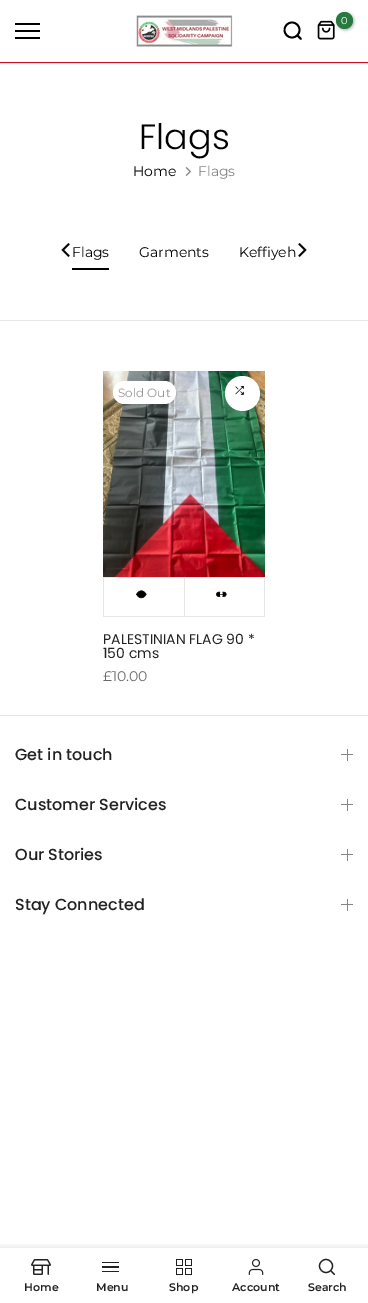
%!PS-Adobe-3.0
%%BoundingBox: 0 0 368 1303
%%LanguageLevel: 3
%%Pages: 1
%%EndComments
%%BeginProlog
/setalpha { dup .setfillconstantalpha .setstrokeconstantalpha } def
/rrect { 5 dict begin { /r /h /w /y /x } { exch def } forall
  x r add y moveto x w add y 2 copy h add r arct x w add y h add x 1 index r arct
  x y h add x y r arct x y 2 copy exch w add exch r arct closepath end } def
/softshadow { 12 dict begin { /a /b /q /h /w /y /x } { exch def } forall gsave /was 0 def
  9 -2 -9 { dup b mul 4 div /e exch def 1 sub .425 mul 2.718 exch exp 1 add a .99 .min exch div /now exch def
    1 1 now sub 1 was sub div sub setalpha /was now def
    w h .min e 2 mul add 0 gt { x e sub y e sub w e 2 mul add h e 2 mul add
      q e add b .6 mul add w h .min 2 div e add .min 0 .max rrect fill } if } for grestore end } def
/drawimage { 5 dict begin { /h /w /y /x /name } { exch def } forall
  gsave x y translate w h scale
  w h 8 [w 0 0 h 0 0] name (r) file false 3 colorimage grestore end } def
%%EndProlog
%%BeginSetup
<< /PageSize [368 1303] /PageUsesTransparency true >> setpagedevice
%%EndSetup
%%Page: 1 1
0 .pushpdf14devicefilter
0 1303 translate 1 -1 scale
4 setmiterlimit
1 setgray
0 0 368 1303 rectfill
0.004 setgray
1.8 setlinewidth
newpath 292 30 7.5 0 360 arc closepath stroke
1 setgray
1.5 setlinewidth
newpath 283 16 moveto 269 30 lineto 283 30 moveto 269 16 lineto stroke
0.808 0.063 0.149 setrgbcolor
0 62 368 1 rectfill
(images/1.raw) 134 15 99 32 drawimage
0.004 setgray
1.8 setlinewidth
1 setlinecap
1 setlinejoin
newpath 301 39 moveto 297.5 35.5 lineto stroke
(images/2.raw) 317 20 18 20 drawimage
0 setgray
337 13 17 17 8.5 1.5 0.3 softshadow
0.149 0.478 0.243 setrgbcolor
newpath 344.5 20.5 8.5 0 360 arc closepath fill
0.004 setgray
15 23 25 2 rectfill
15 30 25 2 rectfill
15 37 25 2 rectfill
0.902 setgray
0 63 368 1 rectfill
0 320 368 1 rectfill
(images/3.raw) 185 167 7 9 drawimage
(images/4.raw) 61 243 9 14 drawimage
0 setgray
72 268 37 2 rectfill
(images/5.raw) 298 243 9 14 drawimage
(images/6.raw) 103 371 162 206 drawimage
114 382 63 23 11.5 0.5 0.1 softshadow
1 setgray
113 381 63 23 11.5 rrect fill
0 setgray
226 377 35 35 17.5 0.5 0.1 softshadow
1 setgray
newpath 242.5 393.5 17.5 0 360 arc closepath fill
(images/7.raw) 235 386 9 9 drawimage
0.902 setgray
103 577 162 1 rectfill
103 616 162 1 rectfill
103 577 1 40 rectfill
184 578 1 38 rectfill
(images/8.raw) 136 590 11 9 drawimage
264 578 1 38 rectfill
(images/9.raw) 216 591 11 6 drawimage
0 715 368 1 rectfill
0.525 setgray
347 749 1 12 rectfill
341 754 12 1 rectfill
347 799 1 12 rectfill
341 804 12 1 rectfill
347 849 1 12 rectfill
341 854 12 1 rectfill
347 899 1 12 rectfill
341 904 12 1 rectfill
gsave
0 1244 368 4 rectclip
0 setgray
0 1248 368 55 0 4.5 0.12 softshadow
grestore
(images/10.raw) 31 1259 20 16 drawimage
0.133 setgray
102 1262 17 1 rectfill
102 1266 17 2 rectfill
102 1271 17 1 rectfill
(images/11.raw) 176 1259 16 16 drawimage
(images/12.raw) 248 1258 16 18 drawimage
1.2 setlinewidth
0 setlinecap
0 setlinejoin
newpath 326 1266 6.5 0 360 arc closepath stroke
1 setlinecap
1 setlinejoin
newpath 334.5 1274.5 moveto 331 1271 lineto stroke
/Montserrat-Regular [10 0 0 -10 0 0] selectfont
1 setgray
341 24 moveto (0) show
/Poppins-Light [35 0 0 -35 0 0] selectfont
0 setgray
139 149 moveto (Flags) show
/Montserrat-Regular [14 0 0 -14 0 0] selectfont
133 176 moveto (Home) show
0.525 setgray
198 176 moveto (Flags) show
0 setgray
72 257 moveto (Flags) show
139 257 moveto (Garments) show
239 257 moveto (Keffiyeh) show
/Montserrat-Regular [12 0 0 -12 0 0] selectfont
0.6 setgray
118 397 moveto (Sold Out) show
/Poppins-Regular [14 0 0 -14 0 0] selectfont
0.133 setgray
103 644 moveto (PALESTINIAN FLAG 90 *) show
103 658 moveto (150 cms) show
/Montserrat-Regular [14 0 0 -14 0 0] selectfont
0.412 setgray
103 681 moveto (£10.00) show
/Poppins-Medium [16 0 0 -16 0 0] selectfont
0.133 setgray
15 760 moveto (Get in touch) show
15 810 moveto (Customer Services) show
15 860 moveto (Our Stories) show
15 910 moveto (Stay Connected) show
/Montserrat-SemiBold [11 0 0 -11 0 0] selectfont
24 1291 moveto (Home) show
96 1291 moveto (Menu) show
169 1291 moveto (Shop) show
232 1291 moveto (Account) show
308 1291 moveto (Search) show
.poppdf14devicefilter showpage
%%EOF
